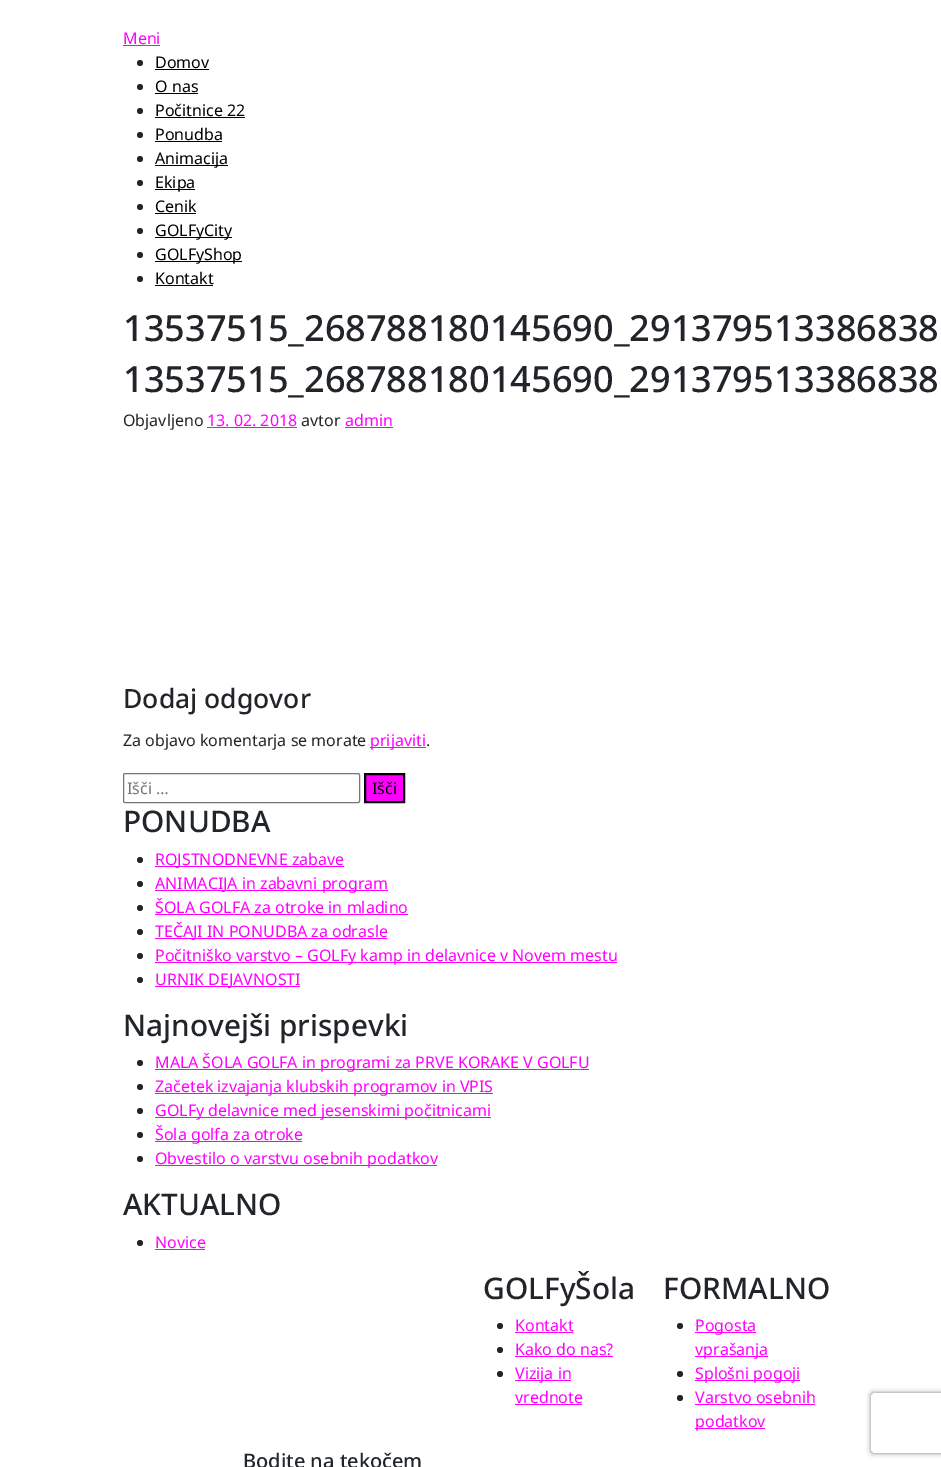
%!PS-Adobe-3.0
%%BoundingBox: 0 0 941 1467
%%LanguageLevel: 3
%%Pages: 1
%%EndComments
%%BeginProlog
/setalpha { dup .setfillconstantalpha .setstrokeconstantalpha } def
/rrect { 5 dict begin { /r /h /w /y /x } { exch def } forall
  x r add y moveto x w add y 2 copy h add r arct x w add y h add x 1 index r arct
  x y h add x y r arct x y 2 copy exch w add exch r arct closepath end } def
/softshadow { 12 dict begin { /a /b /q /h /w /y /x } { exch def } forall gsave /was 0 def
  9 -2 -9 { dup b mul 4 div /e exch def 1 sub .425 mul 2.718 exch exp 1 add a .99 .min exch div /now exch def
    1 1 now sub 1 was sub div sub setalpha /was now def
    w h .min e 2 mul add 0 gt { x e sub y e sub w e 2 mul add h e 2 mul add
      q e add b .6 mul add w h .min 2 div e add .min 0 .max rrect fill } if } for grestore end } def
%%EndProlog
%%BeginSetup
<< /PageSize [941 1467] /PageUsesTransparency true >> setpagedevice
%%EndSetup
%%Page: 1 1
0 .pushpdf14devicefilter
0 1467 translate 1 -1 scale
4 setmiterlimit
1 setgray
0 0 941 1467 rectfill
1 0 1 setrgbcolor
123 45 37 1 rectfill
0.129 0.145 0.161 setrgbcolor
newpath 140 63 3 0 360 arc closepath fill
0 setgray
155 69 54 1 rectfill
0.129 0.145 0.161 setrgbcolor
newpath 140 87 3 0 360 arc closepath fill
0 setgray
155 93 43 1 rectfill
0.129 0.145 0.161 setrgbcolor
newpath 140 111 3 0 360 arc closepath fill
0 setgray
155 117 90 1 rectfill
0.129 0.145 0.161 setrgbcolor
newpath 140 135 3 0 360 arc closepath fill
0 setgray
155 141 67 1 rectfill
0.129 0.145 0.161 setrgbcolor
newpath 140 159 3 0 360 arc closepath fill
0 setgray
155 165 73 1 rectfill
0.129 0.145 0.161 setrgbcolor
newpath 140 183 3 0 360 arc closepath fill
0 setgray
155 189 40 1 rectfill
0.129 0.145 0.161 setrgbcolor
newpath 140 207 3 0 360 arc closepath fill
0 setgray
155 213 41 1 rectfill
0.129 0.145 0.161 setrgbcolor
newpath 140 231 3 0 360 arc closepath fill
0 setgray
155 237 77 1 rectfill
0.129 0.145 0.161 setrgbcolor
newpath 140 255 3 0 360 arc closepath fill
0 setgray
155 261 87 1 rectfill
0.129 0.145 0.161 setrgbcolor
newpath 140 279 3 0 360 arc closepath fill
0 setgray
155 285 58 1 rectfill
1 0 1 setrgbcolor
207 427 90 1 rectfill
345 427 48 1 rectfill
370 747 56 1 rectfill
0.463 setgray
123.5 773.5 236 29 1.5 rrect stroke
1 0 1 setrgbcolor
newpath 365 774 moveto 404 774 lineto 404 802 lineto 365 802 lineto closepath gsave fill grestore
0 setgray
2 setlinewidth
stroke
0.129 0.145 0.161 setrgbcolor
newpath 140 860 3 0 360 arc closepath fill
1 0 1 setrgbcolor
155 866 189 1 rectfill
0.129 0.145 0.161 setrgbcolor
newpath 140 884 3 0 360 arc closepath fill
1 0 1 setrgbcolor
155 890 233 1 rectfill
0.129 0.145 0.161 setrgbcolor
newpath 140 908 3 0 360 arc closepath fill
1 0 1 setrgbcolor
155 914 253 1 rectfill
0.129 0.145 0.161 setrgbcolor
newpath 140 932 3 0 360 arc closepath fill
1 0 1 setrgbcolor
155 938 232 1 rectfill
0.129 0.145 0.161 setrgbcolor
newpath 140 956 3 0 360 arc closepath fill
1 0 1 setrgbcolor
155 962 462 1 rectfill
0.129 0.145 0.161 setrgbcolor
newpath 140 980 3 0 360 arc closepath fill
1 0 1 setrgbcolor
155 986 145 1 rectfill
0.129 0.145 0.161 setrgbcolor
newpath 140 1063 3 0 360 arc closepath fill
1 0 1 setrgbcolor
155 1069 434 1 rectfill
0.129 0.145 0.161 setrgbcolor
newpath 140 1087 3 0 360 arc closepath fill
1 0 1 setrgbcolor
155 1093 338 1 rectfill
0.129 0.145 0.161 setrgbcolor
newpath 140 1111 3 0 360 arc closepath fill
1 0 1 setrgbcolor
155 1117 336 1 rectfill
0.129 0.145 0.161 setrgbcolor
newpath 140 1135 3 0 360 arc closepath fill
1 0 1 setrgbcolor
155 1141 147 1 rectfill
0.129 0.145 0.161 setrgbcolor
newpath 140 1159 3 0 360 arc closepath fill
1 0 1 setrgbcolor
155 1165 282 1 rectfill
0.129 0.145 0.161 setrgbcolor
newpath 140 1243 3 0 360 arc closepath fill
1 0 1 setrgbcolor
155 1249 50 1 rectfill
0.129 0.145 0.161 setrgbcolor
newpath 500 1326 3 0 360 arc closepath fill
1 0 1 setrgbcolor
515 1332 58 1 rectfill
0.129 0.145 0.161 setrgbcolor
newpath 500 1350 3 0 360 arc closepath fill
1 0 1 setrgbcolor
515 1356 98 1 rectfill
0.129 0.145 0.161 setrgbcolor
newpath 500 1374 3 0 360 arc closepath fill
1 0 1 setrgbcolor
515 1380 56 1 rectfill
515 1404 67 1 rectfill
0.129 0.145 0.161 setrgbcolor
newpath 680 1326 3 0 360 arc closepath fill
1 0 1 setrgbcolor
695 1332 61 1 rectfill
695 1356 73 1 rectfill
0.129 0.145 0.161 setrgbcolor
newpath 680 1374 3 0 360 arc closepath fill
1 0 1 setrgbcolor
695 1380 105 1 rectfill
0.129 0.145 0.161 setrgbcolor
newpath 680 1398 3 0 360 arc closepath fill
1 0 1 setrgbcolor
695 1404 120 1 rectfill
695 1428 70 1 rectfill
gsave
newpath 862 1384 moveto 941 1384 lineto 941 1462 lineto 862 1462 lineto closepath 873 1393 moveto 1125 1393 lineto 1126 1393 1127 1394 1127 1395 curveto 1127 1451 lineto 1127 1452 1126 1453 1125 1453 curveto 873 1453 lineto 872 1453 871 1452 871 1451 curveto 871 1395 lineto 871 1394 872 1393 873 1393 curveto closepath eoclip newpath
0.502 setgray
871 1393 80 60 2 2.5 1 softshadow
grestore
/NotoSans-Regular [16 0 0 -16 0 0] selectfont
123 44 moveto (Meni) show
0 setgray
155 68 moveto (Domov) show
155 92 moveto (O nas) show
155 116 moveto (Počitnice 22) show
155 140 moveto (Ponudba) show
155 164 moveto (Animacija) show
155 188 moveto (Ekipa) show
155 212 moveto (Cenik) show
155 236 moveto (GOLFyCity) show
155 260 moveto (GOLFyShop) show
155 284 moveto (Kontakt) show
/NotoSans-Medium [36.1 0 0 -36.1 0 0] selectfont
0.129 0.145 0.161 setrgbcolor
123 341 moveto (13537515_268788180145690_291379513386838) show
123 392 moveto (13537515_268788180145690_291379513386838) show
/NotoSans-Regular [16 0 0 -16 0 0] selectfont
123 426 moveto (Objavljeno) show
1 0 1 setrgbcolor
207 426 moveto (13. 02. 2018) show
0.129 0.145 0.161 setrgbcolor
301 426 moveto (avtor) show
1 0 1 setrgbcolor
345 426 moveto (admin) show
/NotoSans-Medium [26.5 0 0 -26.5 0 0] selectfont
0.129 0.145 0.161 setrgbcolor
123 708 moveto (Dodaj odgovor) show
/NotoSans-Regular [16 0 0 -16 0 0] selectfont
123 746 moveto (Za objavo komentarja se morate) show
1 0 1 setrgbcolor
370 746 moveto (prijaviti) show
0.129 0.145 0.161 setrgbcolor
426 746 moveto (.) show
0.459 setgray
127 794 moveto (Išči …) show
0 setgray
372 794 moveto (Išči) show
/NotoSans-Medium [29.75 0 0 -29.75 0 0] selectfont
0.129 0.145 0.161 setrgbcolor
123 832 moveto (PONUDBA) show
/NotoSans-Regular [16 0 0 -16 0 0] selectfont
1 0 1 setrgbcolor
155 865 moveto (ROJSTNODNEVNE zabave) show
155 889 moveto (ANIMACIJA in zabavni program) show
155 913 moveto (ŠOLA GOLFA za otroke in mladino) show
155 937 moveto (TEČAJI IN PONUDBA za odrasle) show
155 961 moveto (Počitniško varstvo – GOLFy kamp in delavnice v Novem mestu) show
155 985 moveto (URNIK DEJAVNOSTI) show
/NotoSans-Medium [29.75 0 0 -29.75 0 0] selectfont
0.129 0.145 0.161 setrgbcolor
123 1036 moveto (Najnovejši prispevki) show
/NotoSans-Regular [16 0 0 -16 0 0] selectfont
1 0 1 setrgbcolor
155 1068 moveto (MALA ŠOLA GOLFA in programi za PRVE KORAKE V GOLFU) show
155 1092 moveto (Začetek izvajanja klubskih programov in VPIS) show
155 1116 moveto (GOLFy delavnice med jesenskimi počitnicami) show
155 1140 moveto (Šola golfa za otroke) show
155 1164 moveto (Obvestilo o varstvu osebnih podatkov) show
/NotoSans-Medium [29.75 0 0 -29.75 0 0] selectfont
0.129 0.145 0.161 setrgbcolor
123 1215 moveto (AKTUALNO) show
/NotoSans-Regular [16 0 0 -16 0 0] selectfont
1 0 1 setrgbcolor
155 1248 moveto (Novice) show
/NotoSans-Medium [29.75 0 0 -29.75 0 0] selectfont
0.129 0.145 0.161 setrgbcolor
483 1299 moveto (GOLFyŠola) show
/NotoSans-Regular [16 0 0 -16 0 0] selectfont
1 0 1 setrgbcolor
515 1331 moveto (Kontakt) show
515 1355 moveto (Kako do nas?) show
515 1379 moveto (Vizija in) show
515 1403 moveto (vrednote) show
/NotoSans-Medium [29.75 0 0 -29.75 0 0] selectfont
0.129 0.145 0.161 setrgbcolor
663 1299 moveto (FORMALNO) show
/NotoSans-Regular [16 0 0 -16 0 0] selectfont
1 0 1 setrgbcolor
695 1331 moveto (Pogosta) show
695 1355 moveto (vprašanja) show
695 1379 moveto (Splošni pogoji) show
695 1403 moveto (Varstvo osebnih) show
695 1427 moveto (podatkov) show
/NotoSans-Medium [20 0 0 -20 0 0] selectfont
0.129 0.145 0.161 setrgbcolor
243 1468 moveto (Bodite na tekočem) show
.poppdf14devicefilter showpage
%%EOF
